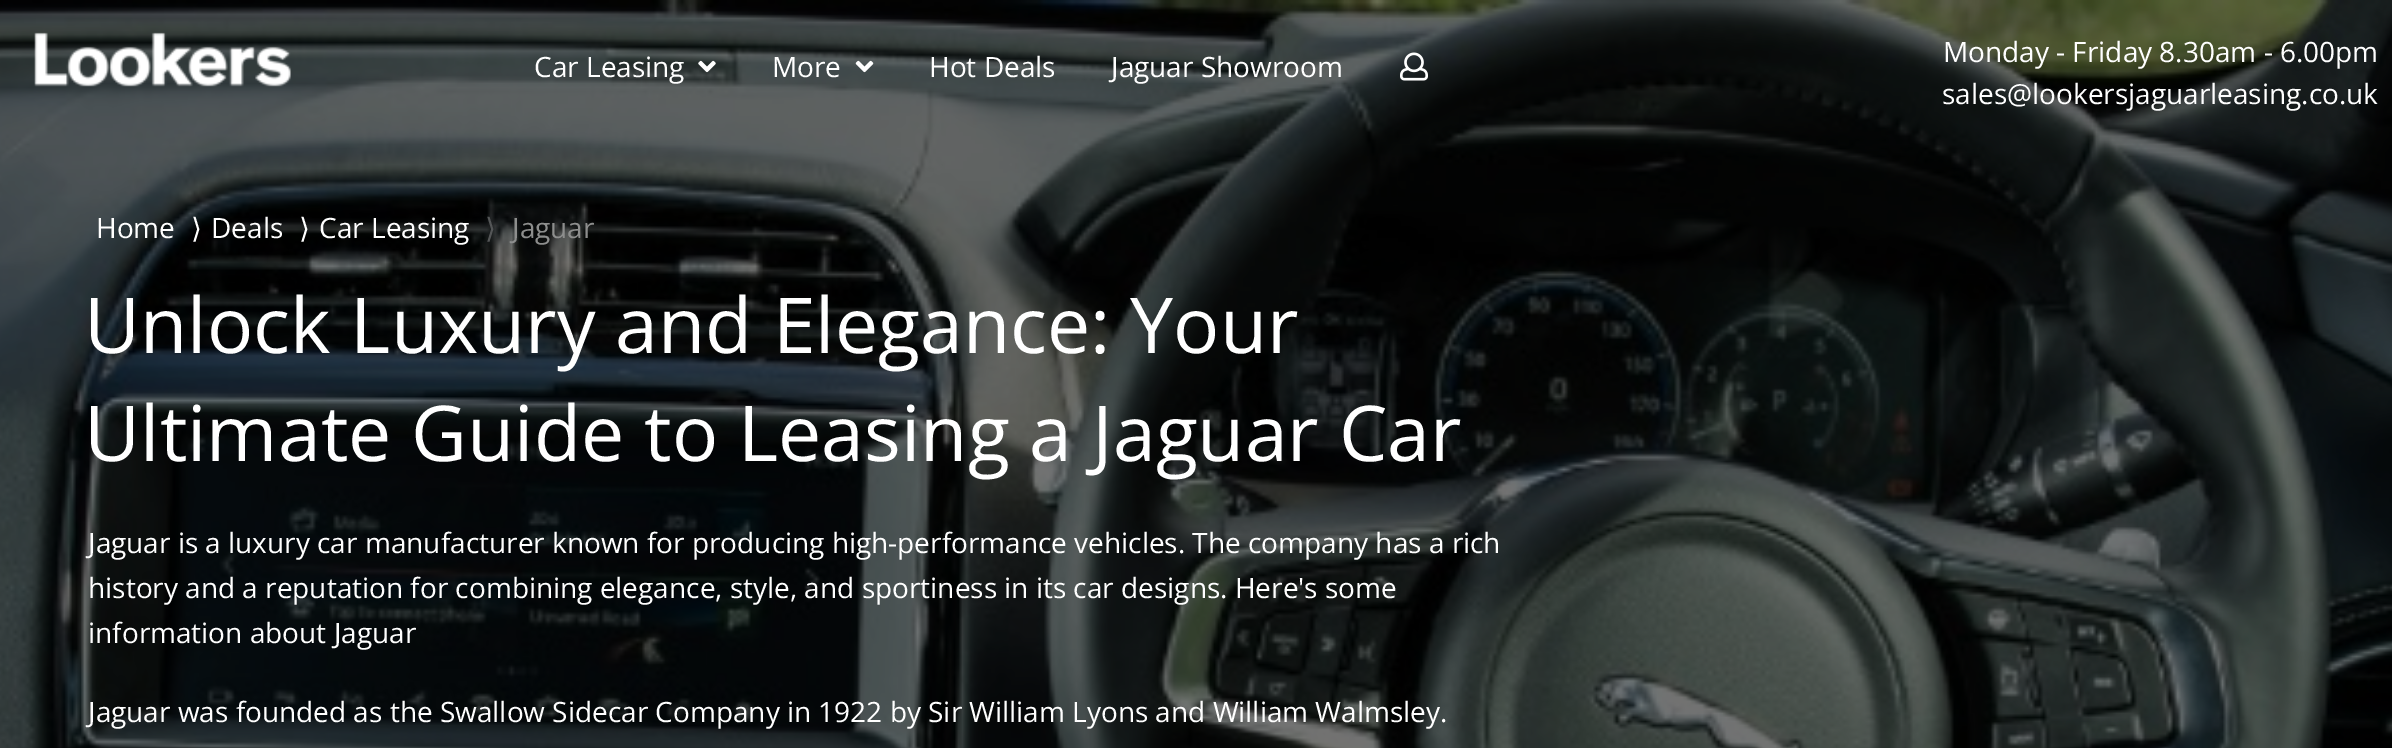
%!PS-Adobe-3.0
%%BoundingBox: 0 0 2392 748
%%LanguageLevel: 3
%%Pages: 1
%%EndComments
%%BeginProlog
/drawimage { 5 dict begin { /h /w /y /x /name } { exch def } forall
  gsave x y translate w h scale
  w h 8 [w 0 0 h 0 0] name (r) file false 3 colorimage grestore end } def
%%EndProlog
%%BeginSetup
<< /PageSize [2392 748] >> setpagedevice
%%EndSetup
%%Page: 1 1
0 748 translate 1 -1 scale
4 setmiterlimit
1 setgray
0 0 2392 748 rectfill
(images/5.raw) 0 0 2392 748 drawimage
(images/1.raw) 34 32 257 55 drawimage
(images/2.raw) 698 60 18 13 drawimage
(images/3.raw) 855 60 19 13 drawimage
(images/4.raw) 1400 52 28 29 drawimage
/OpenSans-Regular [28 0 0 -28 0 0] selectfont
534 77 moveto (Car Leasing) show
772 77 moveto (More) show
929 77 moveto (Hot Deals) show
1111 77 moveto (Jaguar Showroom) show
1943 62 moveto (Monday - Friday 8.30am - 6.00pm) show
1942 104 moveto (sales@lookersjaguarleasing.co.uk) show
96 238 moveto (Home) show
/DejaVuSans-Regular [28 0 0 -28 0 0] selectfont
191 238 moveto (⟩) show
/OpenSans-Regular [28 0 0 -28 0 0] selectfont
211 238 moveto (Deals) show
/DejaVuSans-Regular [28 0 0 -28 0 0] selectfont
299 238 moveto (⟩) show
/OpenSans-Regular [28 0 0 -28 0 0] selectfont
319 238 moveto (Car Leasing) show
/DejaVuSans-Regular [28 0 0 -28 0 0] selectfont
0.329 0.337 0.341 setrgbcolor
485 238 moveto (⟩) show
/OpenSans-Regular [28 0 0 -28 0 0] selectfont
0.553 0.557 0.553 setrgbcolor
512 238 moveto (Jaguar) show
/OpenSans-Regular [77 0 0 -77 0 0] selectfont
1 setgray
84 353 moveto (Unlock Luxury and Elegance: Your) show
84 461 moveto (Ultimate Guide to Leasing a Jaguar Car) show
/OpenSans-Regular [28 0 0 -28 0 0] selectfont
88 553 moveto (Jaguar is a luxury car manufacturer known for producing high-performance vehicles. The company has a rich) show
88 598 moveto (history and a reputation for combining elegance, style, and sportiness in its car designs. Here's some) show
88 643 moveto (information about Jaguar) show
88 722 moveto (Jaguar was founded as the Swallow Sidecar Company in 1922 by Sir William Lyons and William Walmsley.) show
showpage
%%EOF
